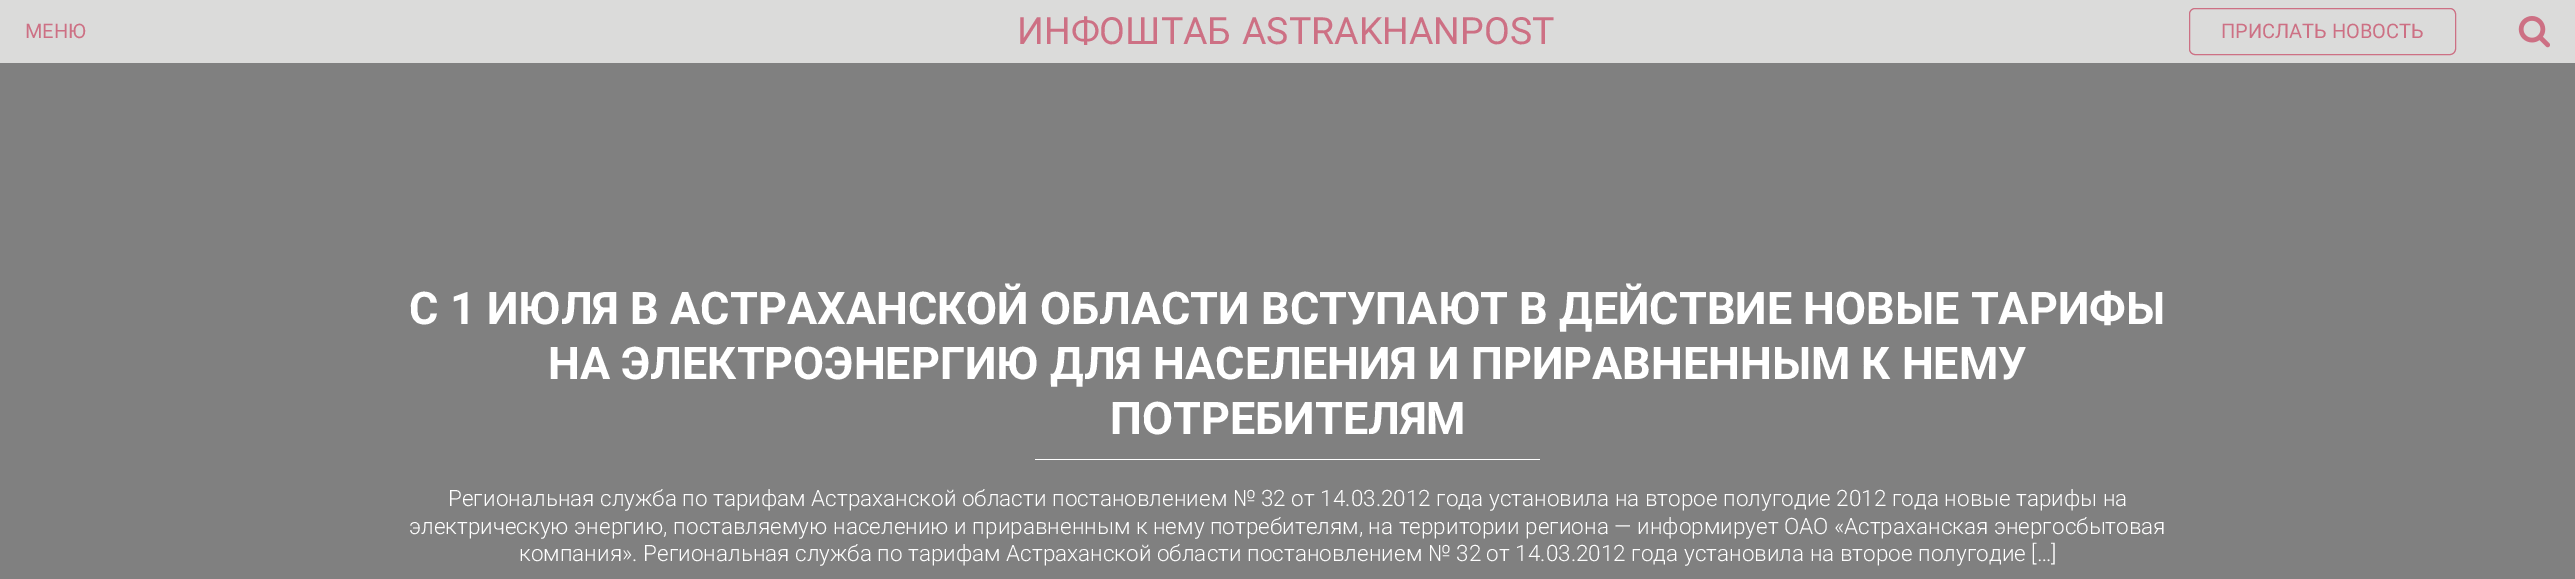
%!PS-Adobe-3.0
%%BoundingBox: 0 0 2575 579
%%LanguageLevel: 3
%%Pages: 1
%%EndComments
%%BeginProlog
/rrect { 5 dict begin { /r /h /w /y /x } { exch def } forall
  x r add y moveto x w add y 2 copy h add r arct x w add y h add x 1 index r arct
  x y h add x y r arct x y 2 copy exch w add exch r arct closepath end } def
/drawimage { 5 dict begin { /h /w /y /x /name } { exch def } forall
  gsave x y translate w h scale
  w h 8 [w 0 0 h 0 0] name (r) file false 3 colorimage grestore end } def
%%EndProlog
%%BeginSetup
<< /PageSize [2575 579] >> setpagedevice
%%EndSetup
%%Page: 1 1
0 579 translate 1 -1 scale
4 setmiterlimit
0.502 setgray
0 0 2575 579 rectfill
0.859 0.859 0.855 setrgbcolor
0 0 2575 63 rectfill
0.804 0.439 0.518 setrgbcolor
2189.5 8.5 266 46 5.5 rrect stroke
(images/1.raw) 2518 16 32 32 drawimage
1 setgray
1035 459 505 1 rectfill
/Roboto-Regular [20 0 0 -20 0 0] selectfont
0.804 0.439 0.518 setrgbcolor
25 38 moveto (МЕНЮ) show
/Roboto-Regular [37.5 0 0 -37.5 0 0] selectfont
1017 44 moveto (ИНФОШТАБ) show
1242 44 moveto (ASTRAKHANPOST) show
/Roboto-Regular [20 0 0 -20 0 0] selectfont
2221 38 moveto (ПРИСЛАТЬ НОВОСТЬ) show
/Roboto-Bold [45 0 0 -45 0 0] selectfont
1 setgray
409 324 moveto (С 1 ИЮЛЯ В АСТРАХАНСКОЙ ОБЛАСТИ ВСТУПАЮТ В ДЕЙСТВИЕ НОВЫЕ ТАРИФЫ) show
548 379 moveto (НА ЭЛЕКТРОЭНЕРГИЮ ДЛЯ НАСЕЛЕНИЯ И ПРИРАВНЕННЫМ К НЕМУ) show
1110 434 moveto (ПОТРЕБИТЕЛЯМ) show
/Roboto-Light [22.5 0 0 -22.5 0 0] selectfont
448 506 moveto (Региональная служба по тарифам Астраханской области постановлением № 32 от 14.03.2012 года установила на второе полугодие 2012 года новые тарифы на) show
409 534 moveto (электрическую энергию, поставляемую населению и приравненным к нему потребителям, на территории региона — информирует ОАО «Астраханская энергосбытовая) show
519 561 moveto (компания». Региональная служба по тарифам Астраханской области постановлением № 32 от 14.03.2012 года установила на второе полугодие […]) show
showpage
%%EOF
